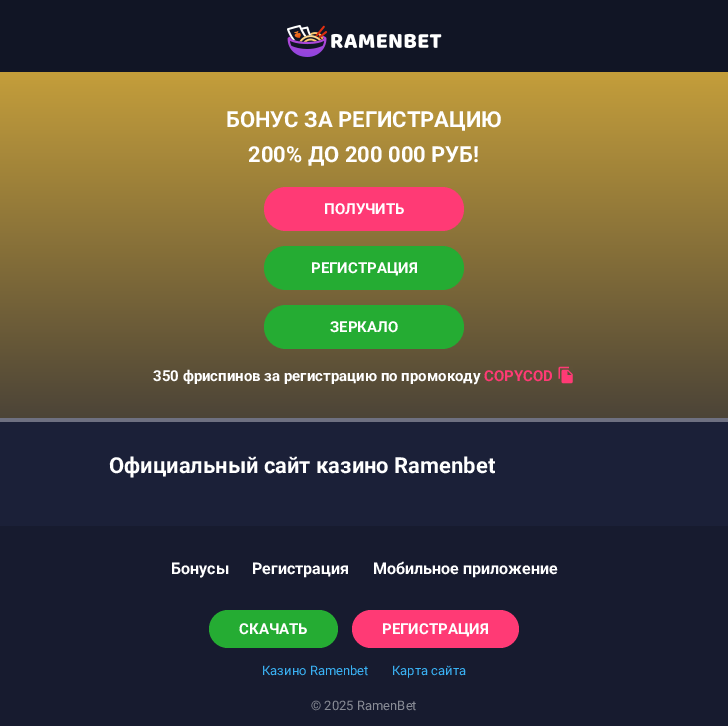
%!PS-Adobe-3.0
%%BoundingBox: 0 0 728 726
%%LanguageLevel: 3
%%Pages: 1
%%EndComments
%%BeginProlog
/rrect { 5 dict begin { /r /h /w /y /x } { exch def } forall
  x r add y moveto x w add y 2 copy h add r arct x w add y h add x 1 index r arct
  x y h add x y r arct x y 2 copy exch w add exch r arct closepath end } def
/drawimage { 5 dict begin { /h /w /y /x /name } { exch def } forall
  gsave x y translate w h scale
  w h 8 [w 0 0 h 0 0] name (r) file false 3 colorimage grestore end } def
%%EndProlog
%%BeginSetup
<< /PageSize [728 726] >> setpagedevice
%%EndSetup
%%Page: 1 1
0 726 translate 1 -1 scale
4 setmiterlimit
0.106 0.125 0.22 setrgbcolor
0 0 728 726 rectfill
0.067 0.082 0.145 setrgbcolor
0 0 728 72 rectfill
(images/1.raw) 287 25 155 32 drawimage
gsave newpath 0 72 moveto 728 72 lineto 728 418 lineto 0 418 lineto closepath clip newpath
<< /ShadingType 2 /ColorSpace /DeviceRGB /Coords [364 72 364 418] /Extend [true true] /Function << /FunctionType 2 /Domain [0 1] /C0 [0.769 0.62 0.231] /C1 [0.298 0.267 0.216] /N 1 >> >> shfill grestore
0.431 0.439 0.506 setrgbcolor
0 418 728 4 rectfill
1 0.227 0.459 setrgbcolor
264 187 200 44 22 rrect fill
0.145 0.675 0.2 setrgbcolor
264 246 200 44 22 rrect fill
264 305 200 44 22 rrect fill
(images/2.raw) 558 366 15 18 drawimage
0.09 0.106 0.184 setrgbcolor
0 526 728 200 rectfill
0.145 0.675 0.2 setrgbcolor
209 610 129 38 19 rrect fill
1 0.227 0.459 setrgbcolor
352 610 167 38 19 rrect fill
/Roboto-Bold [22 0 0 -22 0 0] selectfont
1 setgray
226 127 moveto (БОНУС ЗА РЕГИСТРАЦИЮ) show
248 162 moveto (200% ДО 200 000 РУБ!) show
/Roboto-Bold [15 0 0 -15 0 0] selectfont
324 214 moveto (ПОЛУЧИТЬ) show
311 273 moveto (РЕГИСТРАЦИЯ) show
330 332 moveto (ЗЕРКАЛО) show
153 381 moveto (350 фриспинов за регистрацию по промокоду) show
1 0.227 0.459 setrgbcolor
484 381 moveto (COPYCOD) show
/Roboto-Bold [22 0 0 -22 0 0] selectfont
1 setgray
109 473 moveto (Официальный сайт казино Ramenbet) show
/Roboto-Bold [16 0 0 -16 0 0] selectfont
171 574 moveto (Бонусы) show
252 574 moveto (Регистрация) show
373 574 moveto (Мобильное приложение) show
/Roboto-Bold [15 0 0 -15 0 0] selectfont
239 634 moveto (СКАЧАТЬ) show
382 634 moveto (РЕГИСТРАЦИЯ) show
/Roboto-Regular [13 0 0 -13 0 0] selectfont
0.227 0.694 0.953 setrgbcolor
262 675 moveto (Казино Ramenbet) show
392 675 moveto (Карта сайта) show
0.533 0.545 0.584 setrgbcolor
311 710 moveto (© 2025 RamenBet) show
showpage
%%EOF
